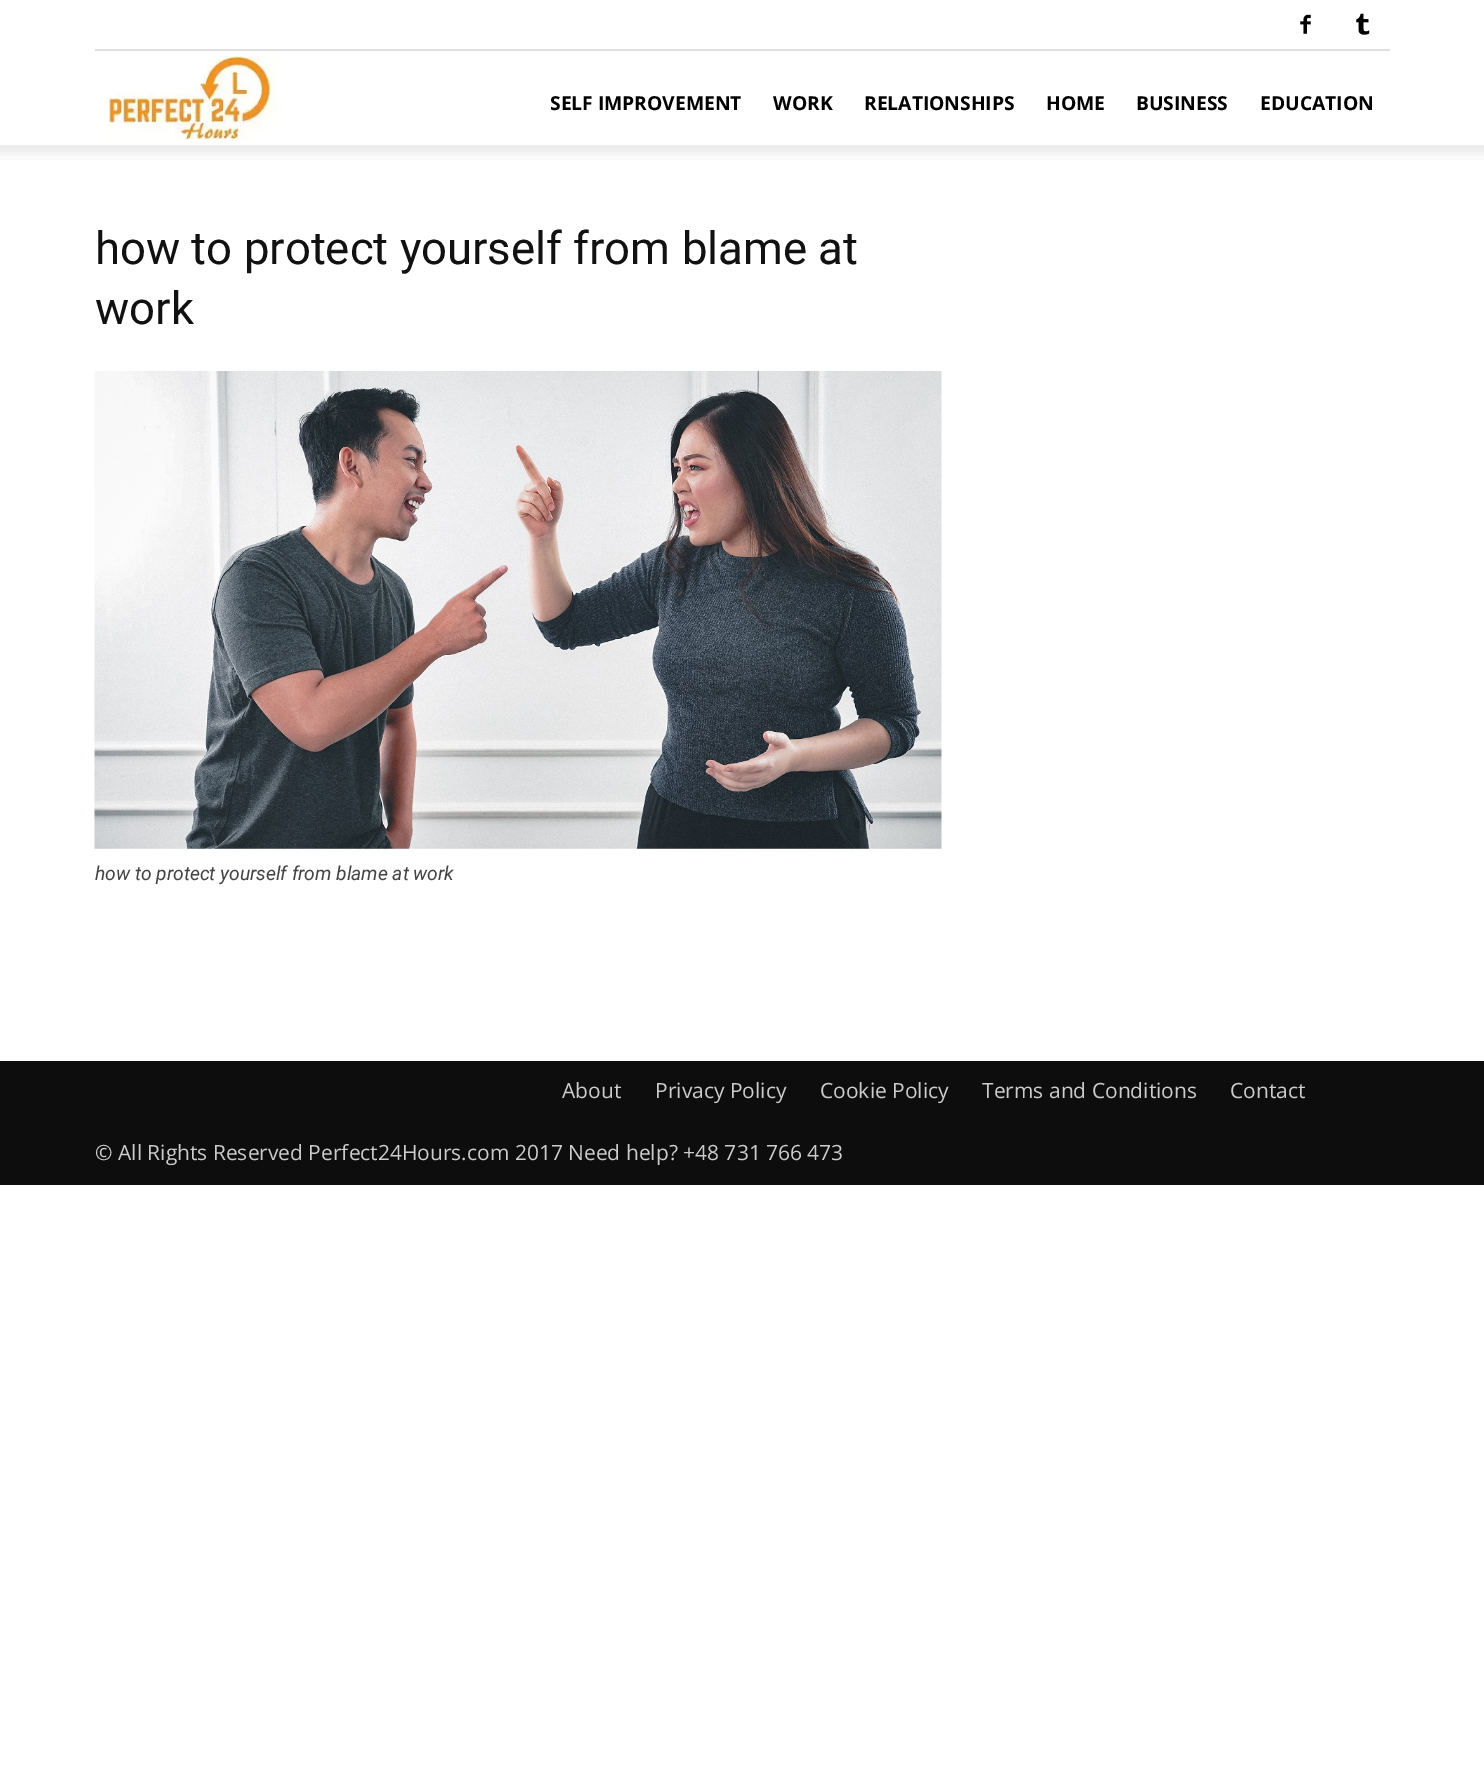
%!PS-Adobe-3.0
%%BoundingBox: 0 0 1484 1776
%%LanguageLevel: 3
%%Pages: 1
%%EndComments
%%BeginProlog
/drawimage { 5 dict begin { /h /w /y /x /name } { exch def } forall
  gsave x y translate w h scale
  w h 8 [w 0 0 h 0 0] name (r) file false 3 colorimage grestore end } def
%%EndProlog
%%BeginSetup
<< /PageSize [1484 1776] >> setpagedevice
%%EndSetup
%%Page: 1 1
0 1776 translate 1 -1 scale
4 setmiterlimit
1 setgray
0 0 1484 1776 rectfill
0.878 setgray
95 49 1295 2 rectfill
(images/1.raw) 1300 14 11 20 drawimage
(images/2.raw) 1356 13 14 22 drawimage
(images/3.raw) 104 56 172 84 drawimage
(images/4.raw) 0 145 1484 15 drawimage
(images/5.raw) 94 371 848 478 drawimage
0.051 setgray
0 1061 1484 124 rectfill
/OpenSans-Bold [19.25 0 0 -19.25 0 0] selectfont
0 setgray
550 110 moveto (SELF IMPROVEMENT) show
773 110 moveto (WORK) show
864 110 moveto (RELATIONSHIPS) show
1046 110 moveto (HOME) show
1136 110 moveto (BUSINESS) show
1260 110 moveto (EDUCATION) show
/Roboto-Regular [45.5 0 0 -45.5 0 0] selectfont
0.067 setgray
95 264 moveto (how to protect yourself from blame at) show
95 324 moveto (work) show
/Roboto-Italic [19.25 0 0 -19.25 0 0] selectfont
0.267 setgray
95 880 moveto (how to protect yourself from blame at work) show
/OpenSans-Regular [21 0 0 -21 0 0] selectfont
0.8 setgray
562 1098 moveto (About) show
655 1098 moveto (Privacy Policy) show
820 1098 moveto (Cookie Policy) show
982 1098 moveto (Terms and Conditions) show
1230 1098 moveto (Contact) show
95 1160 moveto (© All Rights Reserved Perfect24Hours.com 2017 Need help? +48 731 766 473) show
showpage
%%EOF
